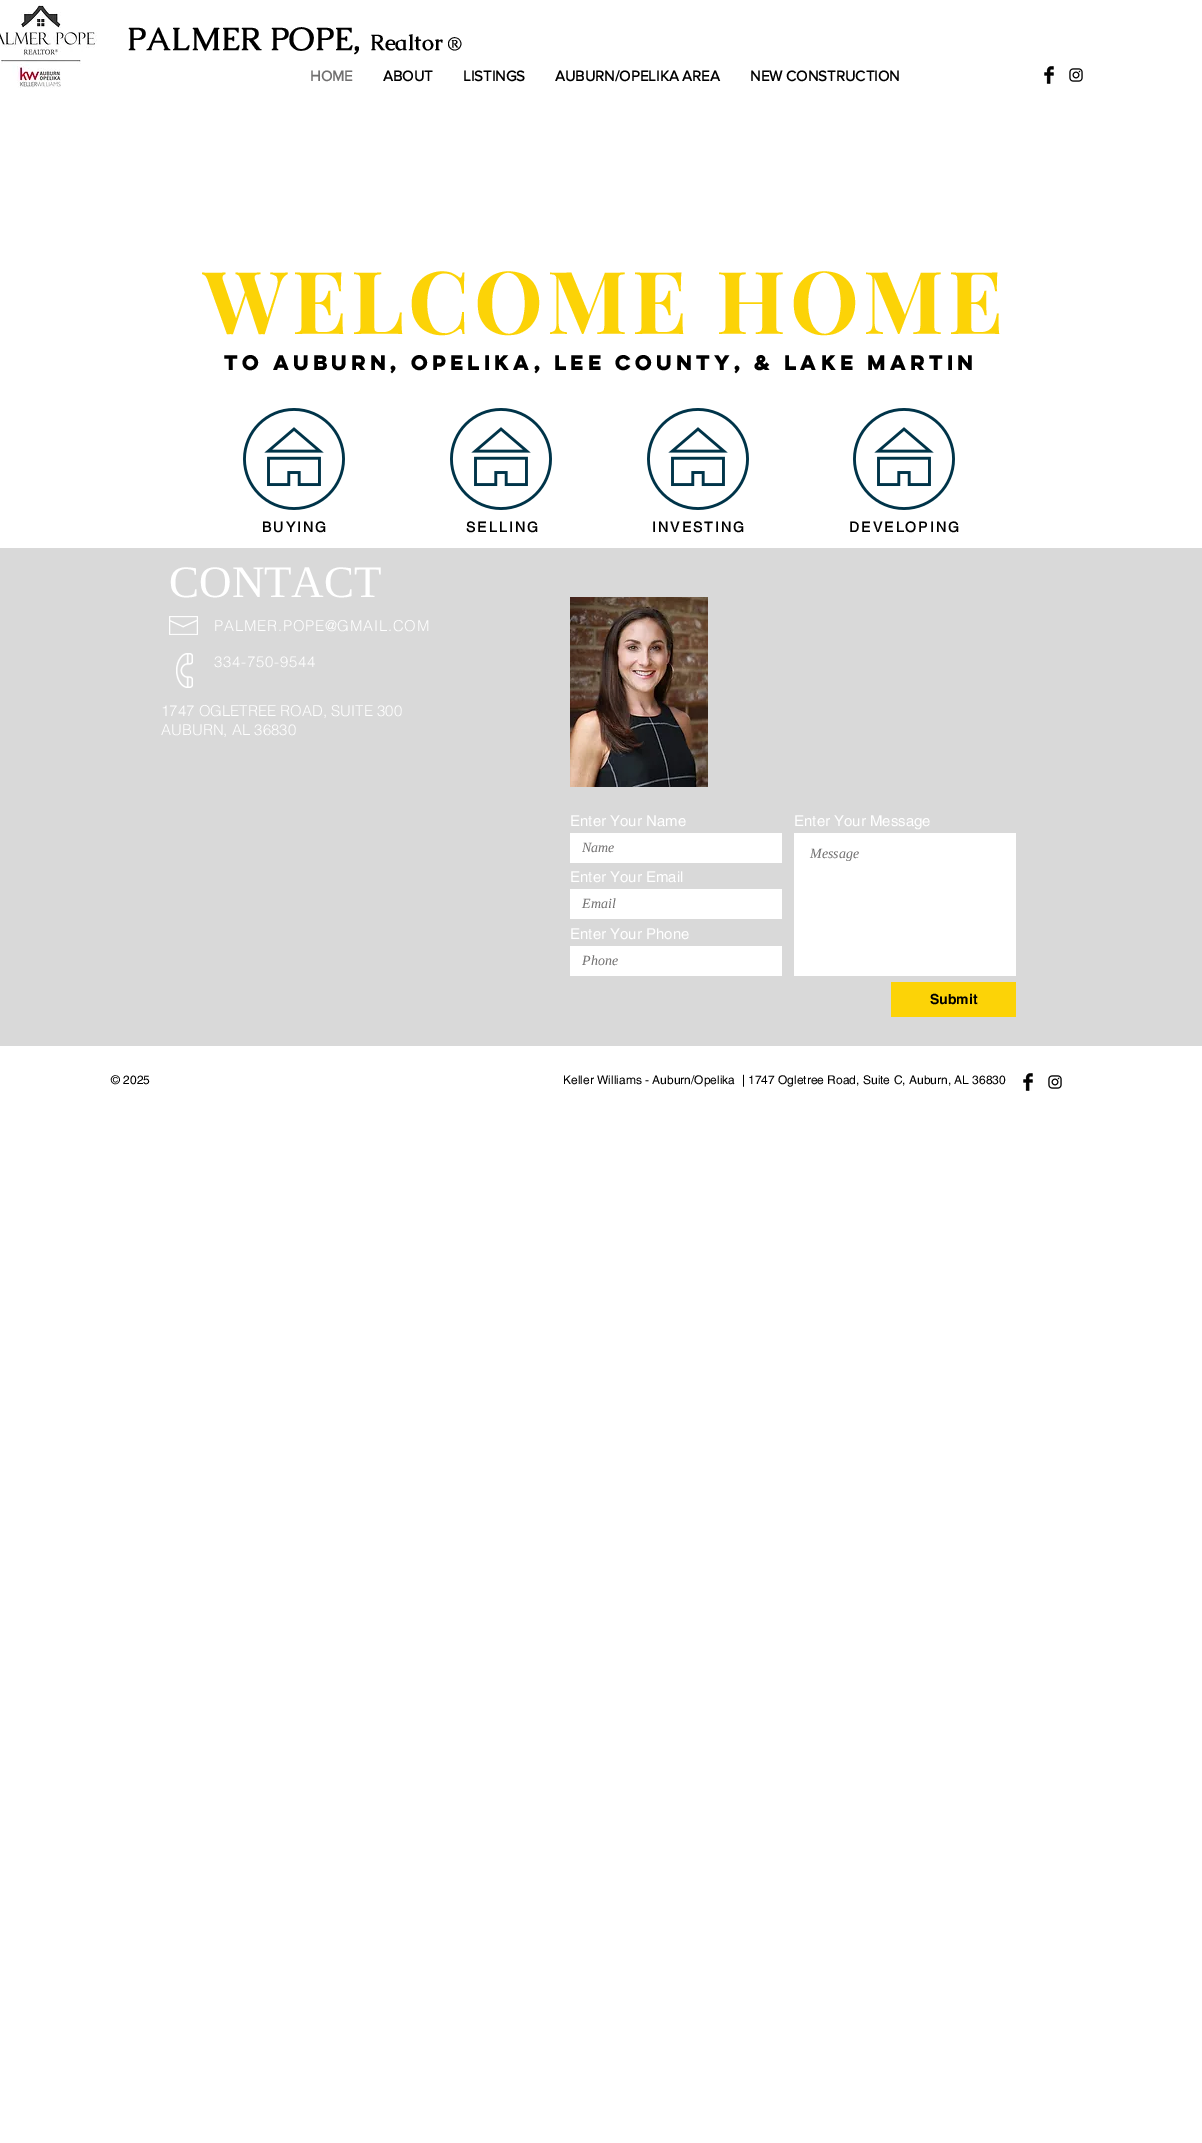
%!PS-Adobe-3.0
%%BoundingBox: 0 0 1202 2143
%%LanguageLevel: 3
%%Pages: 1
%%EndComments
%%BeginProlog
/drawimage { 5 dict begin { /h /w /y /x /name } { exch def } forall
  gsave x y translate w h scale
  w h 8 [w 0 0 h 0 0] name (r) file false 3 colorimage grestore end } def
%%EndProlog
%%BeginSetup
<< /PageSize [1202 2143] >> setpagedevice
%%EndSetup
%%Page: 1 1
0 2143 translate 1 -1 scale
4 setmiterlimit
1 setgray
0 0 1202 2143 rectfill
(images/1.raw) 0 5 97 83 drawimage
(images/2.raw) 1044 66 10 18 drawimage
(images/3.raw) 1069 68 14 14 drawimage
(images/4.raw) 243 408 102 102 drawimage
(images/4.raw) 450 408 102 102 drawimage
(images/4.raw) 647 408 102 102 drawimage
(images/4.raw) 853 408 102 102 drawimage
0.851 setgray
0 548 1202 498 rectfill
(images/5.raw) 169 616 29 19 drawimage
(images/6.raw) 570 597 138 190 drawimage
(images/7.raw) 176 653 17 35 drawimage
1 setgray
570 833 212 30 rectfill
794 833 222 143 rectfill
570 889 212 30 rectfill
570 946 212 30 rectfill
0.988 0.827 0.027 setrgbcolor
891 982 125 35 rectfill
(images/2.raw) 1023 1073 10 18 drawimage
(images/3.raw) 1048 1075 14 14 drawimage
/Caudex-Bold [32 0 0 -32 0 0] selectfont
0 setgray
127 50 moveto (PALMER POPE,) show
/Caudex-Bold [22 0 0 -22 0 0] selectfont
370 50 moveto (Realtor) show
/Caudex-Bold [18 0 0 -18 0 0] selectfont
448 50 moveto (®) show
/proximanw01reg-Bold [15 0 0 -15 0 0] selectfont
0.443 0.439 0.439 setrgbcolor
310 81 moveto (HOME) show
0 setgray
383 81 moveto (ABOUT) show
463 81 moveto (LISTINGS) show
555 81 moveto (AUBURN/OPELIKA AREA) show
750 81 moveto (NEW CONSTRUCTION) show
/PlayfairDisplay-Bold [87 0 0 -87 0 0] selectfont
0.988 0.827 0.027 setrgbcolor
203 334 moveto 4.3 0 (WELCOME HOME) ashow
/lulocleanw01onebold-Bold [19 0 0 -19 0 0] selectfont
0 setgray
224 370 moveto (to Auburn, Opelika, Lee County, & Lake Martin) show
/helvetica-Bold [14 0 0 -14 0 0] selectfont
262 532 moveto 2.1 0 (BUYING) ashow
466 532 moveto 2.1 0 (SELLING) ashow
652 532 moveto 2.1 0 (INVESTING) ashow
849 532 moveto 2.1 0 (DEVELOPING) ashow
/LiberationSerif-Regular [45 0 0 -45 0 0] selectfont
1 setgray
169 597 moveto (CONTACT) show
/helvetica-Light [15 0 0 -15 0 0] selectfont
214 631 moveto 0.75 0 (PALMER.POPE@GMAIL.COM) ashow
214 667 moveto 0.75 0 (334-750-9544) ashow
161 716 moveto (1747 OGLETREE ROAD, SUITE 300) show
161 735 moveto (AUBURN, AL 36830) show
/helvetica-Regular [15 0 0 -15 0 0] selectfont
570 826 moveto (Enter Your Name) show
/LiberationSerif-Italic [14 0 0 -14 0 0] selectfont
0.443 0.439 0.439 setrgbcolor
582 852 moveto (Name) show
/helvetica-Regular [15 0 0 -15 0 0] selectfont
1 setgray
794 826 moveto (Enter Your Message) show
/LiberationSerif-Italic [14 0 0 -14 0 0] selectfont
0.443 0.439 0.439 setrgbcolor
810 858 moveto (Message) show
/helvetica-Regular [15 0 0 -15 0 0] selectfont
1 setgray
570 882 moveto (Enter Your Email) show
/LiberationSerif-Italic [14 0 0 -14 0 0] selectfont
0.443 0.439 0.439 setrgbcolor
582 908 moveto (Email) show
/helvetica-Regular [15 0 0 -15 0 0] selectfont
1 setgray
570 939 moveto (Enter Your Phone) show
/LiberationSerif-Italic [14 0 0 -14 0 0] selectfont
0.443 0.439 0.439 setrgbcolor
582 965 moveto (Phone) show
/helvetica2-Bold [14 0 0 -14 0 0] selectfont
0 setgray
930 1004 moveto (Submit) show
/helvetica-Regular [12 0 0 -12 0 0] selectfont
111 1084 moveto (© 2025) show
563 1084 moveto (Keller Williams - Auburn/Opelika  | 1747 Ogletree Road, Suite C, Auburn, AL 36830) show
showpage
%%EOF
